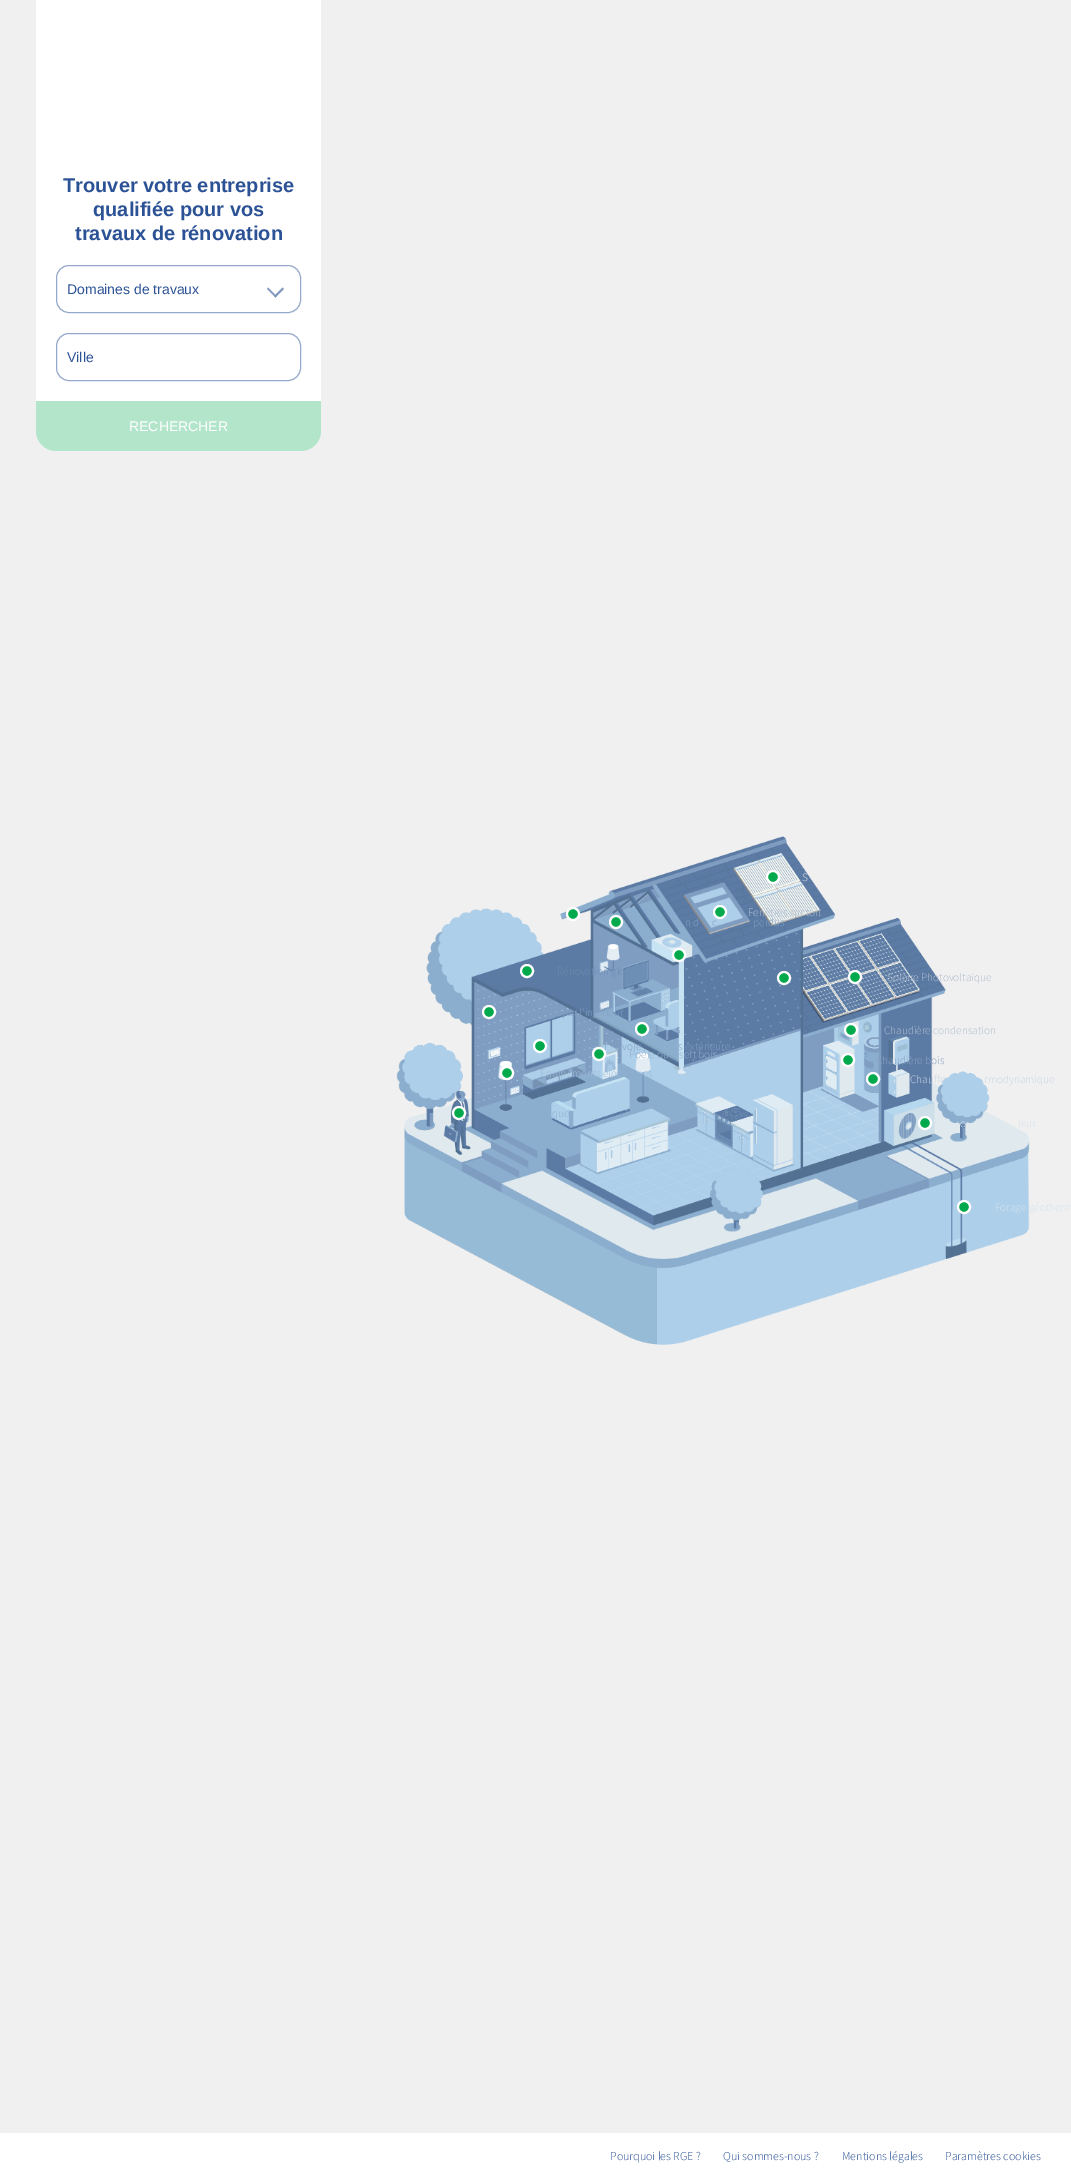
%!PS-Adobe-3.0
%%BoundingBox: 0 0 1071 2178
%%LanguageLevel: 3
%%Pages: 1
%%EndComments
%%BeginProlog
/setalpha { dup .setfillconstantalpha .setstrokeconstantalpha } def
/rrect { 5 dict begin { /r /h /w /y /x } { exch def } forall
  x r add y moveto x w add y 2 copy h add r arct x w add y h add x 1 index r arct
  x y h add x y r arct x y 2 copy exch w add exch r arct closepath end } def
/drawimage { 5 dict begin { /h /w /y /x /name } { exch def } forall
  gsave x y translate w h scale
  w h 8 [w 0 0 h 0 0] name (r) file false 3 colorimage grestore end } def
%%EndProlog
%%BeginSetup
<< /PageSize [1071 2178] /PageUsesTransparency true >> setpagedevice
%%EndSetup
%%Page: 1 1
0 .pushpdf14devicefilter
0 2178 translate 1 -1 scale
4 setmiterlimit
0.941 setgray
0 0 1071 2178 rectfill
1 setgray
newpath 36 0 moveto 321 0 lineto 321 431 lineto 321 442 312 451 301 451 curveto 56 451 lineto 45 451 36 442 36 431 curveto closepath fill
0.588 0.663 0.796 setrgbcolor
56.5 265.5 244 47 12.5 rrect stroke
0.502 0.592 0.753 setrgbcolor
newpath 282.5 287.5 moveto 284 289 lineto 275.5 297.5 lineto 274 296 lineto closepath fill
newpath 268 287.5 moveto 276.5 296 lineto 275.5 297.5 lineto 267 289 lineto closepath fill
0.588 0.663 0.796 setrgbcolor
56.5 333.5 244 47 12.5 rrect stroke
0.3 setalpha
0 0.663 0.294 setrgbcolor
newpath 36 401 moveto 321 401 lineto 321 431 lineto 321 442 312 451 301 451 curveto 56 451 lineto 45 451 36 442 36 431 curveto closepath fill
1 setalpha
(images/1.raw) 396 836 634 509 drawimage
newpath 773 877 6 0 360 arc closepath gsave fill grestore
1 setgray
2 setlinewidth
stroke
0 0.663 0.294 setrgbcolor
newpath 573 914 6 0 360 arc closepath gsave fill grestore
1 setgray
stroke
0 0.663 0.294 setrgbcolor
newpath 720 912 6 0 360 arc closepath gsave fill grestore
1 setgray
stroke
0 0.663 0.294 setrgbcolor
newpath 616 922 6 0 360 arc closepath gsave fill grestore
1 setgray
stroke
0 0.663 0.294 setrgbcolor
newpath 679 955 6 0 360 arc closepath gsave fill grestore
1 setgray
stroke
0 0.663 0.294 setrgbcolor
newpath 527 971 6 0 360 arc closepath gsave fill grestore
1 setgray
stroke
0 0.663 0.294 setrgbcolor
newpath 855 977 6 0 360 arc closepath gsave fill grestore
1 setgray
stroke
0 0.663 0.294 setrgbcolor
newpath 784 978 6 0 360 arc closepath gsave fill grestore
1 setgray
stroke
0 0.663 0.294 setrgbcolor
newpath 489 1012 6 0 360 arc closepath gsave fill grestore
1 setgray
stroke
0 0.663 0.294 setrgbcolor
newpath 642 1029 6 0 360 arc closepath gsave fill grestore
1 setgray
stroke
0 0.663 0.294 setrgbcolor
newpath 851 1030 6 0 360 arc closepath gsave fill grestore
1 setgray
stroke
0 0.663 0.294 setrgbcolor
newpath 540 1046 6 0 360 arc closepath gsave fill grestore
1 setgray
stroke
0 0.663 0.294 setrgbcolor
newpath 848 1060 6 0 360 arc closepath gsave fill grestore
1 setgray
stroke
0 0.663 0.294 setrgbcolor
newpath 507 1073 6 0 360 arc closepath gsave fill grestore
1 setgray
stroke
0 0.663 0.294 setrgbcolor
newpath 873 1079 6 0 360 arc closepath gsave fill grestore
1 setgray
stroke
0 0.663 0.294 setrgbcolor
newpath 459 1113 6 0 360 arc closepath gsave fill grestore
1 setgray
stroke
0 0.663 0.294 setrgbcolor
newpath 925 1123 6 0 360 arc closepath gsave fill grestore
1 setgray
stroke
0 0.663 0.294 setrgbcolor
newpath 964 1207 6 0 360 arc closepath gsave fill grestore
1 setgray
stroke
0 2133 1071 45 rectfill
/LiberationSans-Bold [20 0 0 -20 0 0] selectfont
0.173 0.322 0.588 setrgbcolor
63 192 moveto (Trouver votre entreprise) show
93 216 moveto (qualifiée pour vos) show
75 240 moveto (travaux de rénovation) show
/LiberationSans-Regular [14 0 0 -14 0 0] selectfont
67 294 moveto (Domaines de travaux) show
67 362 moveto (Ville) show
1 setgray
129 431 moveto (RECHERCHER) show
/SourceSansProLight-Light [11.25 0 0 -11.25 0 0] selectfont
0.871 0.886 0.906 setrgbcolor
802 881 moveto (S) show
0.69 0.745 0.812 setrgbcolor
748 916 moveto (Fenêtres sur toit) show
0.498 0.624 0.757 setrgbcolor
685 926 moveto (n d) show
712 926 moveto (c) show
753 926 moveto (perdus) show
0.431 0.553 0.702 setrgbcolor
557 975 moveto (Rénovation glo) show
0.471 0.569 0.694 setrgbcolor
916 982 moveto (r) show
0.69 0.745 0.812 setrgbcolor
887 981 moveto (Solaire Photovoltaïque) show
0.498 0.624 0.757 setrgbcolor
562 1016 moveto (par l'intérieur) show
0.396 0.518 0.675 setrgbcolor
676 1033 moveto (s) show
0.69 0.745 0.812 setrgbcolor
884 1034 moveto (Chaudière condensation) show
0.498 0.624 0.757 setrgbcolor
604 1050 moveto (r) show
622 1050 moveto (vole) show
678 1050 moveto (s extérieure) show
0 0.663 0.294 setrgbcolor
newpath 599 1054 6 0 360 arc closepath gsave fill grestore
1 setgray
stroke
0.565 0.675 0.792 setrgbcolor
629 1058 moveto (Poêle ou) show
679 1058 moveto (sert bois) show
0.541 0.639 0.757 setrgbcolor
876 1064 moveto (Chaudière bois) show
0.612 0.729 0.839 setrgbcolor
540 1077 moveto (Équipements élec) show
643 1077 moveto (es) show
0.784 0.835 0.886 setrgbcolor
910 1083 moveto (Chauffe) show
984 1083 moveto (rmodynamique) show
0.569 0.702 0.824 setrgbcolor
552 1117 moveto (que) show
0.831 0.886 0.929 setrgbcolor
960 1127 moveto (o) show
1018 1127 moveto (leur) show
995 1211 moveto (Forage géotherm) show
/SourceSansProLight-Light [12 0 0 -12 0 0] selectfont
0.173 0.322 0.588 setrgbcolor
610 2160 moveto (Pourquoi les RGE ?) show
723 2160 moveto (Qui sommes-nous ?) show
842 2160 moveto (Mentions légales) show
945 2160 moveto (Paramètres cookies) show
.poppdf14devicefilter showpage
%%EOF
